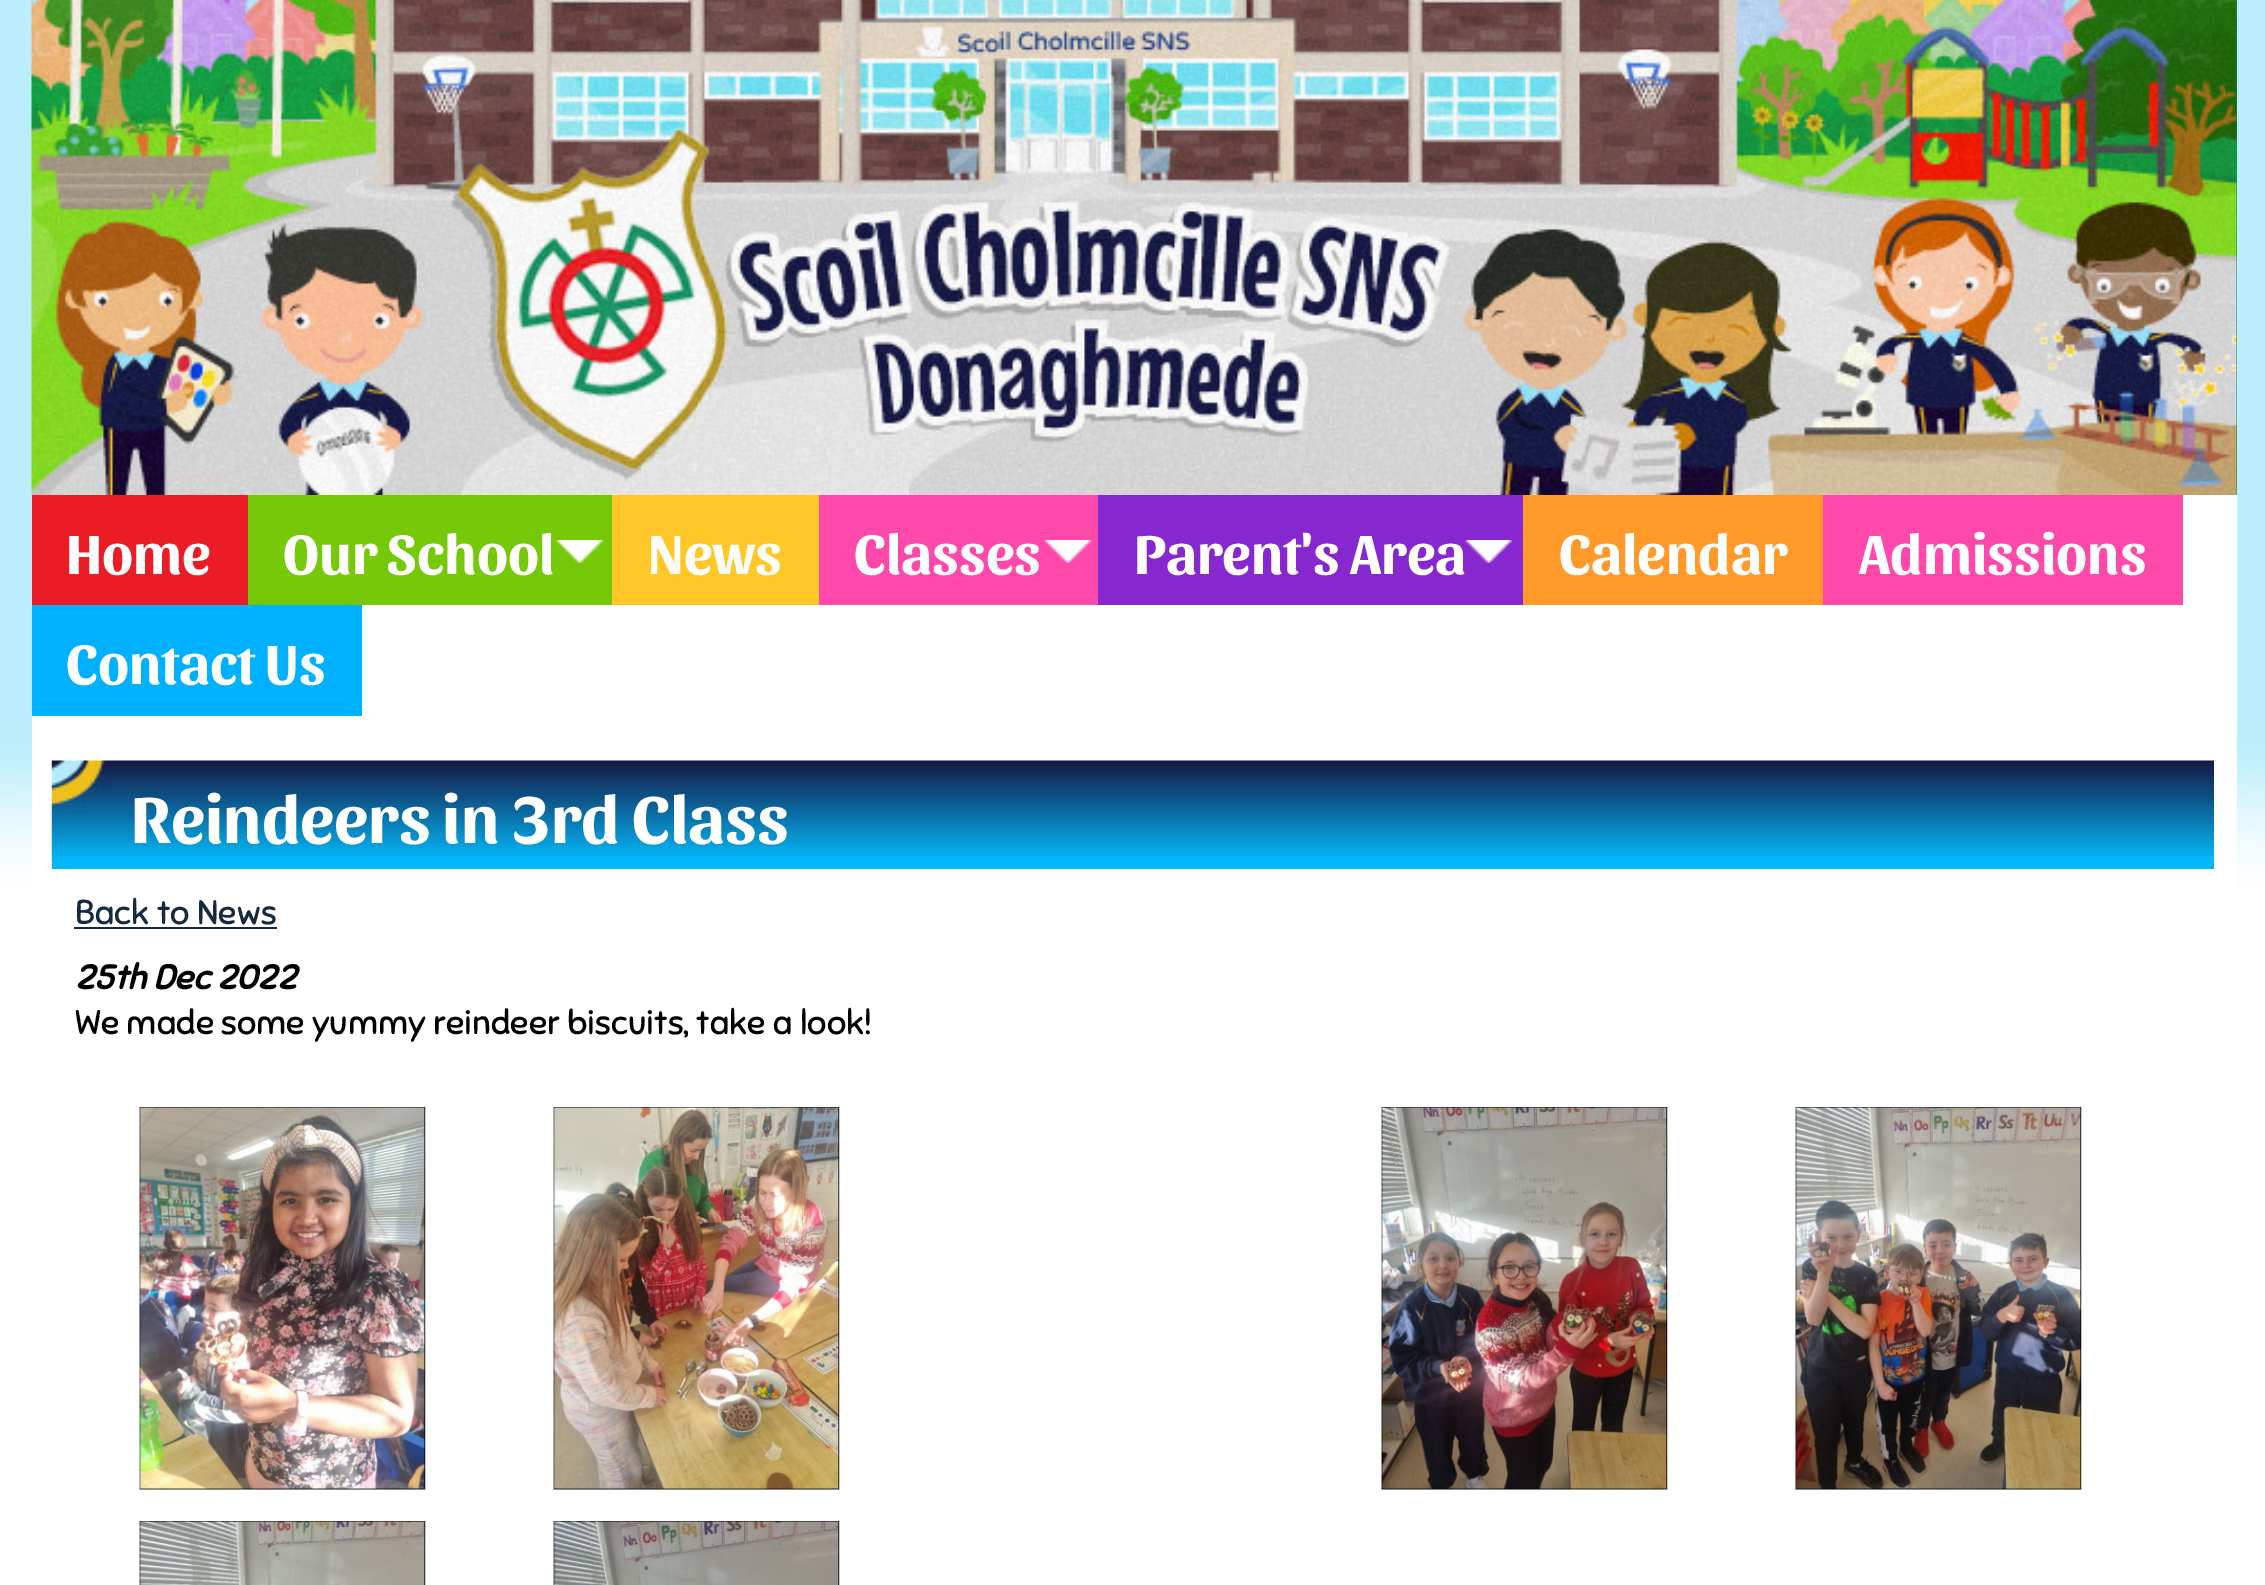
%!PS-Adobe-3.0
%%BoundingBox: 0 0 2265 1585
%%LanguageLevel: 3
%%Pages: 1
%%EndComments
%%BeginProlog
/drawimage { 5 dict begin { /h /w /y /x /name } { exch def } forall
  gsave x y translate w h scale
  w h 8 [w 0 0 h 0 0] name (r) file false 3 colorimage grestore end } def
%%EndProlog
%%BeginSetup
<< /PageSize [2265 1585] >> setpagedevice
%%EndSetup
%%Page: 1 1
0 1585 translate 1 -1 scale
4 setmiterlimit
1 setgray
0 0 2265 1585 rectfill
(images/1.raw) 0 0 2265 886 drawimage
0.02 0.58 0.369 setrgbcolor
2236 0 1 495 rectfill
(images/2.raw) 31 0 2206 495 drawimage
1 setgray
362 495 1875 221 rectfill
0.922 0.11 0.149 setrgbcolor
32 495 216 110 rectfill
0.463 0.788 0.035 setrgbcolor
248 495 364 110 rectfill
(images/3.raw) 555 540 48 23 drawimage
1 0.78 0.157 setrgbcolor
612 495 207 110 rectfill
0.996 0.286 0.667 setrgbcolor
819 495 279 110 rectfill
(images/4.raw) 1044 540 48 23 drawimage
0.529 0.153 0.812 setrgbcolor
1098 495 425 110 rectfill
(images/5.raw) 1464 540 48 23 drawimage
1 0.6 0.165 setrgbcolor
1523 495 300 110 rectfill
0.996 0.286 0.667 setrgbcolor
1823 495 360 110 rectfill
0 0.694 1 setrgbcolor
32 605 330 111 rectfill
1 setgray
32 716 2205 170 rectfill
0.008 0.722 0.976 setrgbcolor
52 861 2162 8 rectfill
(images/6.raw) 51 760 2163 102 drawimage
0.082 0.161 0.255 setrgbcolor
74 927 203 2 rectfill
(images/7.raw) 139 1107 287 383 drawimage
(images/8.raw) 553 1107 287 383 drawimage
(images/9.raw) 1381 1107 287 383 drawimage
(images/10.raw) 1795 1107 287 383 drawimage
(images/11.raw) 139 1521 287 64 drawimage
(images/12.raw) 553 1521 287 64 drawimage
/Sansita-Bold [57.5 0 0 -57.5 0 0] selectfont
1 setgray
66 574 moveto (Home) show
283 574 moveto (Our School) show
648 574 moveto (News) show
854 574 moveto (Classes) show
1134 574 moveto (Parent's Area) show
1559 574 moveto (Calendar) show
1859 574 moveto (Admissions) show
66 684 moveto (Contact Us) show
/Sansita-Bold [68.5 0 0 -68.5 0 0] selectfont
131 843 moveto (Reindeers in 3rd Class) show
/Sniglet-Regular [34.2 0 0 -34.2 0 0] selectfont
0.082 0.161 0.255 setrgbcolor
75 924 moveto (Back to News) show
/Sniglet-BoldItalic [34.2 0 0 -34.2 0 0] selectfont
0 setgray
75 989 moveto (25th Dec 2022) show
/Sniglet-Regular [34.2 0 0 -34.2 0 0] selectfont
75 1034 moveto (We made some yummy reindeer biscuits, take a look!) show
showpage
%%EOF
